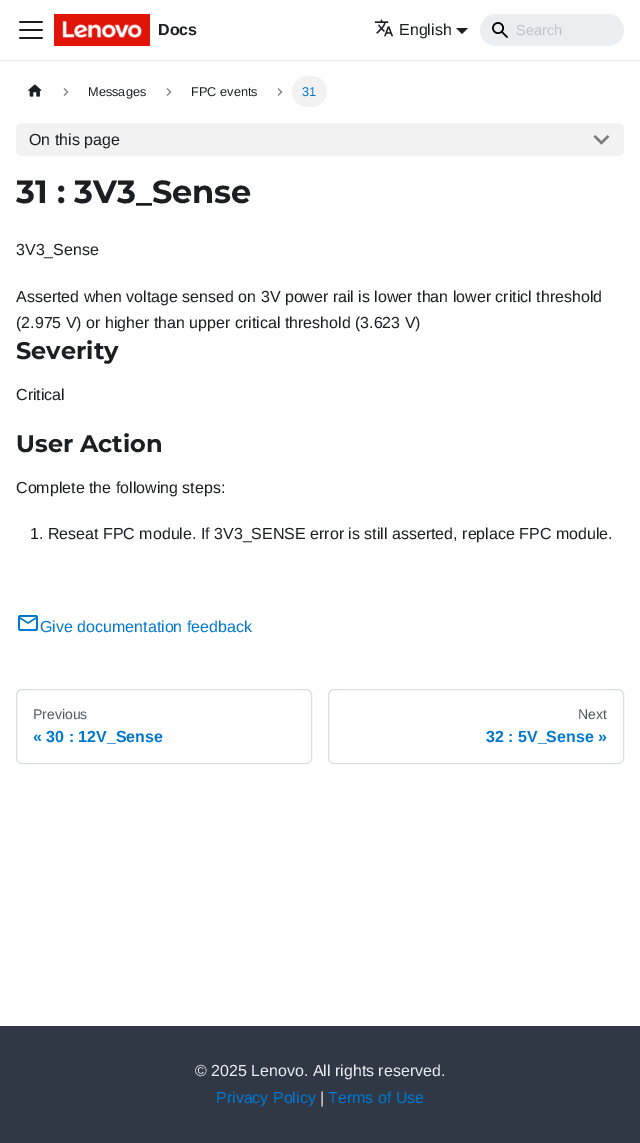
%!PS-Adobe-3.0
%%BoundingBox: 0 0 640 1143
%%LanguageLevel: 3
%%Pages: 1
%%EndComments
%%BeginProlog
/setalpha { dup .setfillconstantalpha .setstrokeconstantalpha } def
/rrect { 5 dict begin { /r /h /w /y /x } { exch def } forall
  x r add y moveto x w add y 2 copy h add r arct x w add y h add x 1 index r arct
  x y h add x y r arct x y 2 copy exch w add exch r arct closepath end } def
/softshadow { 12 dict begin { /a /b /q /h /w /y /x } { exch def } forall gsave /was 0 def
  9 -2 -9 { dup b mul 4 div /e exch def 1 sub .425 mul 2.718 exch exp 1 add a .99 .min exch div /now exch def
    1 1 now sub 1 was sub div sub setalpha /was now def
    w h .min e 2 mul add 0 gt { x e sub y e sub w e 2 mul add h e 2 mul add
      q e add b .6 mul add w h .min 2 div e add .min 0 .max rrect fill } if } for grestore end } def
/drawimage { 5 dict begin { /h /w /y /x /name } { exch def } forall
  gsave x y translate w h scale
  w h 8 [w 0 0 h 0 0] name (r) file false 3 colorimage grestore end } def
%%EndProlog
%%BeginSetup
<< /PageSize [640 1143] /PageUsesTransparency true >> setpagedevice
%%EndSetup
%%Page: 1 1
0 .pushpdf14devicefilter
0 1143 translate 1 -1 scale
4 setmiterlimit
1 setgray
0 0 640 1143 rectfill
gsave
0 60 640 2 rectclip
0 setgray
0 1 640 60 0 1 0.1 softshadow
grestore
(images/1.raw) 19 21 24 18 drawimage
(images/2.raw) 54 14 96 32 drawimage
(images/3.raw) 374 19 20 18 drawimage
0.11 0.118 0.129 setrgbcolor
newpath 456 28 moveto 468 28 lineto 462 34 lineto closepath fill
0.922 0.929 0.941 setrgbcolor
480 14 144 32 16 rrect fill
(images/4.raw) 492 22 16 16 drawimage
(images/5.raw) 28 84 14 13 drawimage
(images/6.raw) 63 88 6 8 drawimage
(images/6.raw) 166 88 6 8 drawimage
(images/6.raw) 277 88 6 8 drawimage
0.949 setgray
292 76 35 31 15.5 rrect fill
16 123 608 33 6 rrect fill
(images/7.raw) 593 135 17 10 drawimage
(images/8.raw) 18 615 20 16 drawimage
0.855 0.867 0.882 setrgbcolor
16.5 689.5 295 74 5.5 rrect stroke
328.5 689.5 295 74 5.5 rrect stroke
0.188 0.22 0.275 setrgbcolor
0 1026 640 117 rectfill
/LiberationSans-Bold [16 0 0 -16 0 0] selectfont
0.11 0.118 0.129 setrgbcolor
158 35 moveto (Docs) show
/LiberationSans-Regular [16 0 0 -16 0 0] selectfont
399 35 moveto (English) show
/LiberationSans-Regular [14.5 0 0 -14.5 0 0] selectfont
0.745 0.765 0.788 setrgbcolor
516 35 moveto (Search) show
/LiberationSans-Regular [12.75 0 0 -12.75 0 0] selectfont
0.11 0.118 0.129 setrgbcolor
88 96 moveto (Messages) show
191 96 moveto (FPC events) show
0 0.471 0.816 setrgbcolor
302 96 moveto (31) show
/LiberationSans-Regular [16 0 0 -16 0 0] selectfont
0.11 0.118 0.129 setrgbcolor
29 145 moveto (On this page) show
/Montserrat-Bold [32 0 0 -32 0 0] selectfont
16 203 moveto (31 : 3V3_Sense) show
/LiberationSans-Regular [16 0 0 -16 0 0] selectfont
16 255 moveto (3V3_Sense) show
16 302 moveto (Asserted when voltage sensed on 3V power rail is lower than lower criticl threshold) show
16 328 moveto (\(2.975 V\) or higher than upper critical threshold \(3.623 V\)) show
/Montserrat-Bold [24 0 0 -24 0 0] selectfont
16 359 moveto (Severity) show
/LiberationSans-Regular [16 0 0 -16 0 0] selectfont
16 400 moveto (Critical) show
/Montserrat-Bold [24 0 0 -24 0 0] selectfont
16 452 moveto (User Action) show
/LiberationSans-Regular [16 0 0 -16 0 0] selectfont
16 493 moveto (Complete the following steps:) show
30 539 moveto (1. Reseat FPC module. If 3V3_SENSE error is still asserted, replace FPC module.) show
0 0.471 0.816 setrgbcolor
40 632 moveto (Give documentation feedback) show
/LiberationSans-Regular [14 0 0 -14 0 0] selectfont
0.322 0.345 0.376 setrgbcolor
33 719 moveto (Previous) show
/LiberationSans-Bold [16 0 0 -16 0 0] selectfont
0 0.471 0.816 setrgbcolor
33 742 moveto (« 30 : 12V_Sense) show
/LiberationSans-Regular [14 0 0 -14 0 0] selectfont
0.322 0.345 0.376 setrgbcolor
578 719 moveto (Next) show
/LiberationSans-Bold [16 0 0 -16 0 0] selectfont
0 0.471 0.816 setrgbcolor
486 742 moveto (32 : 5V_Sense ») show
/LiberationSans-Regular [16 0 0 -16 0 0] selectfont
0.922 0.929 0.941 setrgbcolor
195 1076 moveto (© 2025 Lenovo. All rights reserved.) show
0 0.471 0.816 setrgbcolor
216 1103 moveto (Privacy Policy) show
0.922 0.929 0.941 setrgbcolor
320 1103 moveto (|) show
0 0.471 0.816 setrgbcolor
328 1103 moveto (Terms of Use) show
.poppdf14devicefilter showpage
%%EOF
